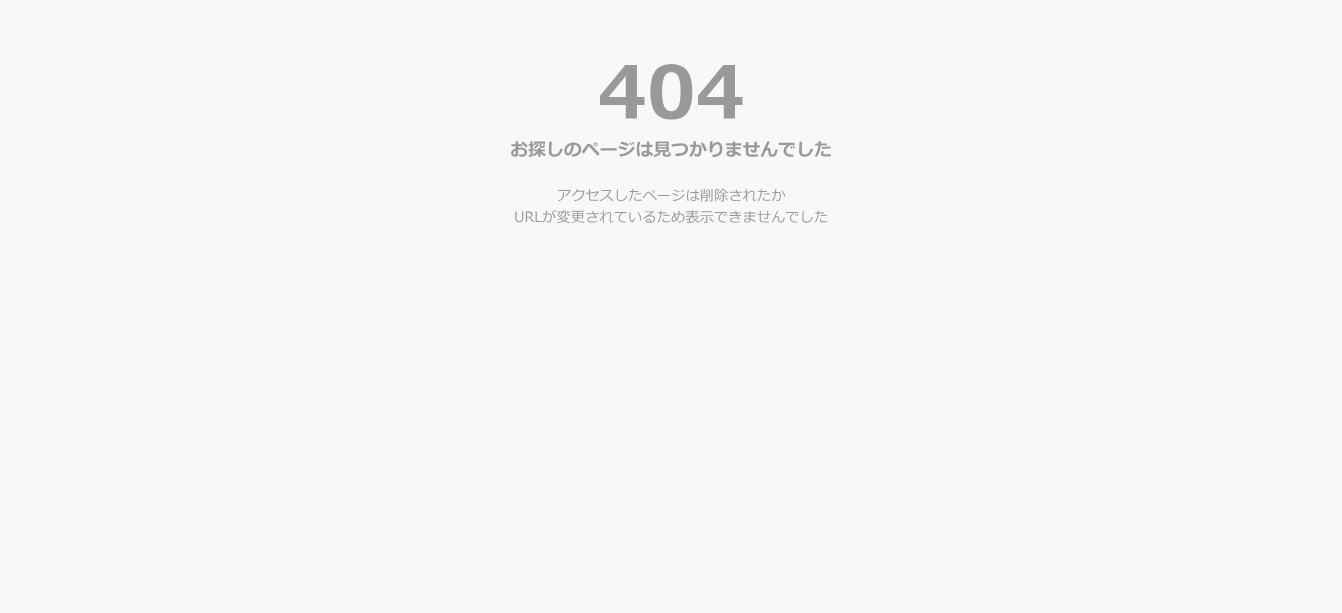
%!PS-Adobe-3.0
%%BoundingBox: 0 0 1342 613
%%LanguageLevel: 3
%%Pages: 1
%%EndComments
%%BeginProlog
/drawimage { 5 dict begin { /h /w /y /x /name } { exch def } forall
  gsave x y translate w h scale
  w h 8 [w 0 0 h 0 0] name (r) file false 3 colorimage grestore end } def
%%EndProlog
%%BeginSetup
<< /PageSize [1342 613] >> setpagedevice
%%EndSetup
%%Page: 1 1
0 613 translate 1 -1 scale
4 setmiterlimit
0.973 setgray
0 0 1342 613 rectfill
(images/1.raw) 511 64 320 159 drawimage
showpage
%%EOF
